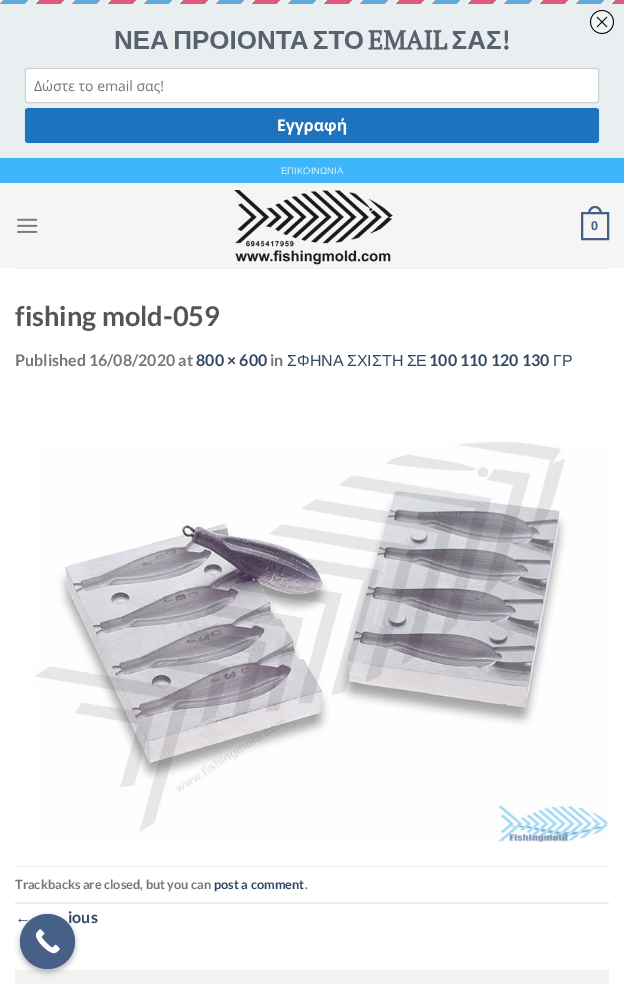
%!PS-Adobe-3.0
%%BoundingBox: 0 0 624 984
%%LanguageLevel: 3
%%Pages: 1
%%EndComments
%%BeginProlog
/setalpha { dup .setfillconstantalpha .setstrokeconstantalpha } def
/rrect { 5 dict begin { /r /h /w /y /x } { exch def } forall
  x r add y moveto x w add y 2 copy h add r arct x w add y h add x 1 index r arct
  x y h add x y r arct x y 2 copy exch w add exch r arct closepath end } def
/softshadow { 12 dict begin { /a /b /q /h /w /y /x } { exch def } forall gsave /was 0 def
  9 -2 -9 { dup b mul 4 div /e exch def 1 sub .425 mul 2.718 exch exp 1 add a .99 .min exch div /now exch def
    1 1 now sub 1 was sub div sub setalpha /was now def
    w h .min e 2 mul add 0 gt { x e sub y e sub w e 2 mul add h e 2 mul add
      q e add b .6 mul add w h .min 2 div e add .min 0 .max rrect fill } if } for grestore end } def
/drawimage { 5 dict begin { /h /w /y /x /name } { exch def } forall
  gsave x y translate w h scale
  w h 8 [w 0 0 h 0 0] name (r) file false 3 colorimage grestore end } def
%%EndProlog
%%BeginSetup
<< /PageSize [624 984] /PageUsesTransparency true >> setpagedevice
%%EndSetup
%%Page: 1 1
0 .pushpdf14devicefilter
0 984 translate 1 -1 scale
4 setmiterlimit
1 setgray
0 0 624 984 rectfill
(images/1.raw) 0 0 624 158 drawimage
0.243 0.714 0.976 setrgbcolor
0 158 624 25 rectfill
0.961 setgray
0 183 624 85 rectfill
(images/2.raw) 17 218 21 15 drawimage
(images/3.raw) 234 190 159 75 drawimage
0.267 0.376 0.518 setrgbcolor
2 setlinewidth
582 213 26 26 rectstroke
newpath 595 206 moveto 599.5 206 602 210 602 214 curveto 588 214 lineto 588 210 590.5 206 595 206 curveto closepath 595 208 moveto 598.5 208 600 211 600 214 curveto 590 214 lineto 590 211 591.5 208 595 208 curveto closepath eofill
0.945 setgray
15 268 594 1 rectfill
(images/4.raw) 34 442 575 400 drawimage
0.925 setgray
15 866 594 1 rectfill
15 902 594 2 rectfill
0.949 setgray
15 970 594 14 rectfill
0 setgray
20 917 55 55 27.5 3 0.3 softshadow
/LiberationSans-Regular [9.5 0 0 -9.5 0 0] selectfont
0.847 0.941 0.996 setrgbcolor
281 174 moveto (ΕΠΙΚΟΙΝΩΝΙΑ) show
/LiberationSans-Bold [12.75 0 0 -12.75 0 0] selectfont
0.267 0.376 0.518 setrgbcolor
591 230 moveto (0) show
/Lato-Bold [27.25 0 0 -27.25 0 0] selectfont
0.333 setgray
15 326 moveto (fishing mold-059) show
/Lato-Bold [16 0 0 -16 0 0] selectfont
0.467 setgray
15 366 moveto (Published 16/08/2020 at) show
0.2 0.282 0.384 setrgbcolor
196 366 moveto (800 × 600) show
0.467 setgray
270 366 moveto (in) show
/LiberationSans-Regular [16 0 0 -16 0 0] selectfont
0.2 0.282 0.384 setrgbcolor
287 366 moveto -1 0 32 (ΣΦΗΝΑ ΣΧΙΣΤΗ ΣΕ) widthshow
/Lato-Bold [16 0 0 -16 0 0] selectfont
429 366 moveto (100 110 120 130) show
/LiberationSans-Regular [16 0 0 -16 0 0] selectfont
553 366 moveto (ΓΡ) show
/Lato-Bold [12.75 0 0 -12.75 0 0] selectfont
0.467 setgray
15 889 moveto (Trackbacks are closed, but you can) show
0.2 0.282 0.384 setrgbcolor
214 889 moveto (post a comment) show
0.467 setgray
305 889 moveto (.) show
/LiberationSans-Regular [16 0 0 -16 0 0] selectfont
0.2 0.282 0.384 setrgbcolor
15 923 moveto (←) show
/Lato-Bold [16 0 0 -16 0 0] selectfont
68 923 moveto (ious) show
0.278 0.376 0.533 setrgbcolor
newpath 47.5 941.5 27.5 0 360 arc closepath fill
(images/5.raw) 35 929 25 25 drawimage
.poppdf14devicefilter showpage
%%EOF
